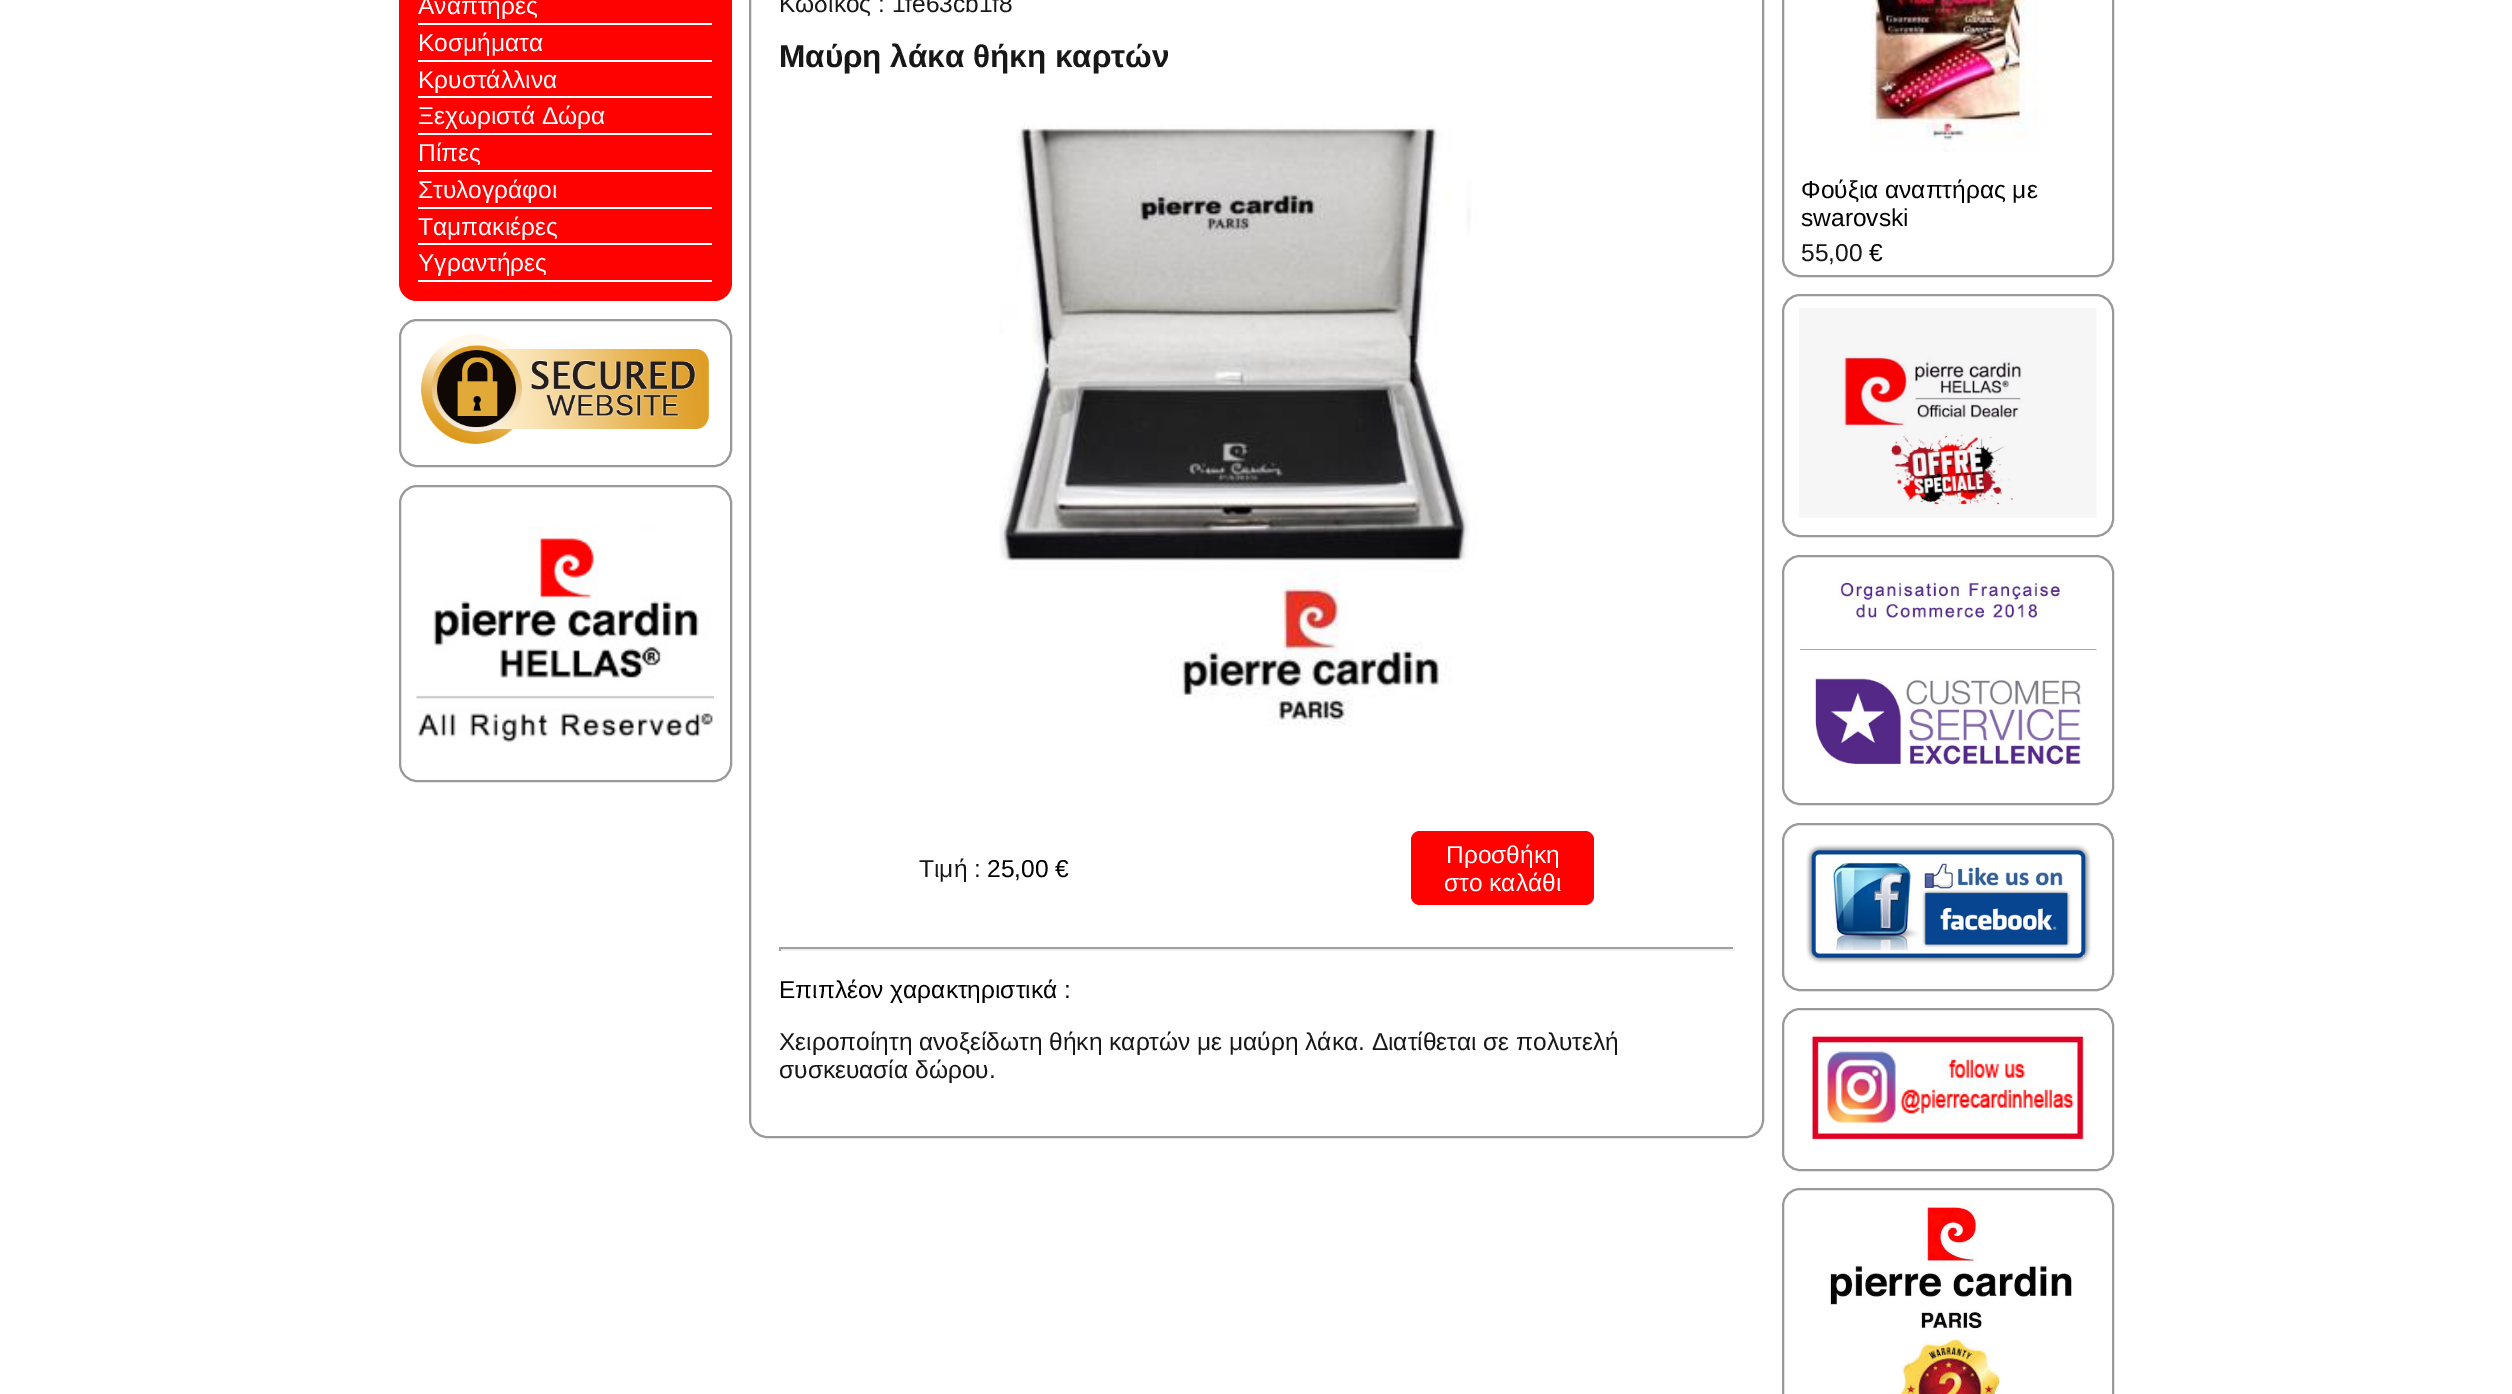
%!PS-Adobe-3.0
%%BoundingBox: 0 0 2512 1394
%%LanguageLevel: 3
%%Pages: 1
%%EndComments
%%BeginProlog
/rrect { 5 dict begin { /r /h /w /y /x } { exch def } forall
  x r add y moveto x w add y 2 copy h add r arct x w add y h add x 1 index r arct
  x y h add x y r arct x y 2 copy exch w add exch r arct closepath end } def
/drawimage { 5 dict begin { /h /w /y /x /name } { exch def } forall
  gsave x y translate w h scale
  w h 8 [w 0 0 h 0 0] name (r) file false 3 colorimage grestore end } def
%%EndProlog
%%BeginSetup
<< /PageSize [2512 1394] >> setpagedevice
%%EndSetup
%%Page: 1 1
0 1394 translate 1 -1 scale
4 setmiterlimit
1 setgray
0 0 2512 1394 rectfill
0.996 0.008 0.004 setrgbcolor
399 -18 333 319 18 rrect fill
1 setgray
418 23 294 2 rectfill
418 60 294 2 rectfill
418 96 294 2 rectfill
418 133 294 2 rectfill
418 170 294 2 rectfill
418 207 294 2 rectfill
418 243 294 2 rectfill
418 280 294 2 rectfill
0.6 setgray
2 setlinewidth
400 320 331 146 17 rrect stroke
(images/1.raw) 421 334 288 110 drawimage
400 486 331 295 17 rrect stroke
(images/2.raw) 416 526 298 217 drawimage
750 -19 1013 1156 17 rrect stroke
(images/3.raw) 999 124 479 602 drawimage
0.996 0.008 0.004 setrgbcolor
1411 831 183 74 9 rrect fill
0.624 setgray
779 947 955 2 rectfill
0.933 setgray
1733 947 2 4 rectfill
779 949 955 2 rectfill
0.624 setgray
779 947 2 4 rectfill
0.6 setgray
1783 -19 330 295 17 rrect stroke
(images/4.raw) 1870 0 169 152 drawimage
1783 295 330 241 17 rrect stroke
(images/5.raw) 1799 308 298 210 drawimage
1783 556 330 248 17 rrect stroke
(images/6.raw) 1799 581 298 187 drawimage
1783 824 330 166 17 rrect stroke
(images/7.raw) 1806 844 285 120 drawimage
1783 1009 330 161 17 rrect stroke
(images/8.raw) 1810 1033 282 109 drawimage
1783 1189 330 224 17 rrect stroke
(images/9.raw) 1828 1202 244 192 drawimage
/LiberationSans-Regular [24.5 0 0 -24.5 0 0] selectfont
1 setgray
418 14 moveto (Αναπτήρες) show
418 51 moveto (Κοσμήματα) show
418 88 moveto (Κρυστάλλινα) show
418 124 moveto (Ξεχωριστά Δώρα) show
418 161 moveto (Πίπες) show
418 198 moveto (Στυλογράφοι) show
418 235 moveto (Ταμπακιέρες) show
418 271 moveto (Υγραντήρες) show
0.09 setgray
779 12 moveto (Κωδικός : 1fe63cb1f8) show
/LiberationSans-Bold [31.5 0 0 -31.5 0 0] selectfont
779 67 moveto (Μαύρη λάκα θήκη καρτών) show
/LiberationSans-Regular [24.5 0 0 -24.5 0 0] selectfont
919 877 moveto (Τιμή :) show
0 setgray
987 877 moveto (25,00 €) show
1 setgray
1446 863 moveto (Προσθήκη) show
1444 891 moveto (στο καλάθι) show
0 setgray
779 998 moveto (Επιπλέον χαρακτηριστικά :) show
0.09 setgray
779 1050 moveto (Χειροποίητη ανοξείδωτη θήκη καρτών με μαύρη λάκα. Διατίθεται σε πολυτελή) show
779 1078 moveto (συσκευασία δώρου.) show
0 setgray
1801 198 moveto (Φούξια αναπτήρας με) show
1801 226 moveto (swarovski) show
0.09 setgray
1801 261 moveto (55,00) show
0 setgray
1869 261 moveto (€) show
showpage
%%EOF
